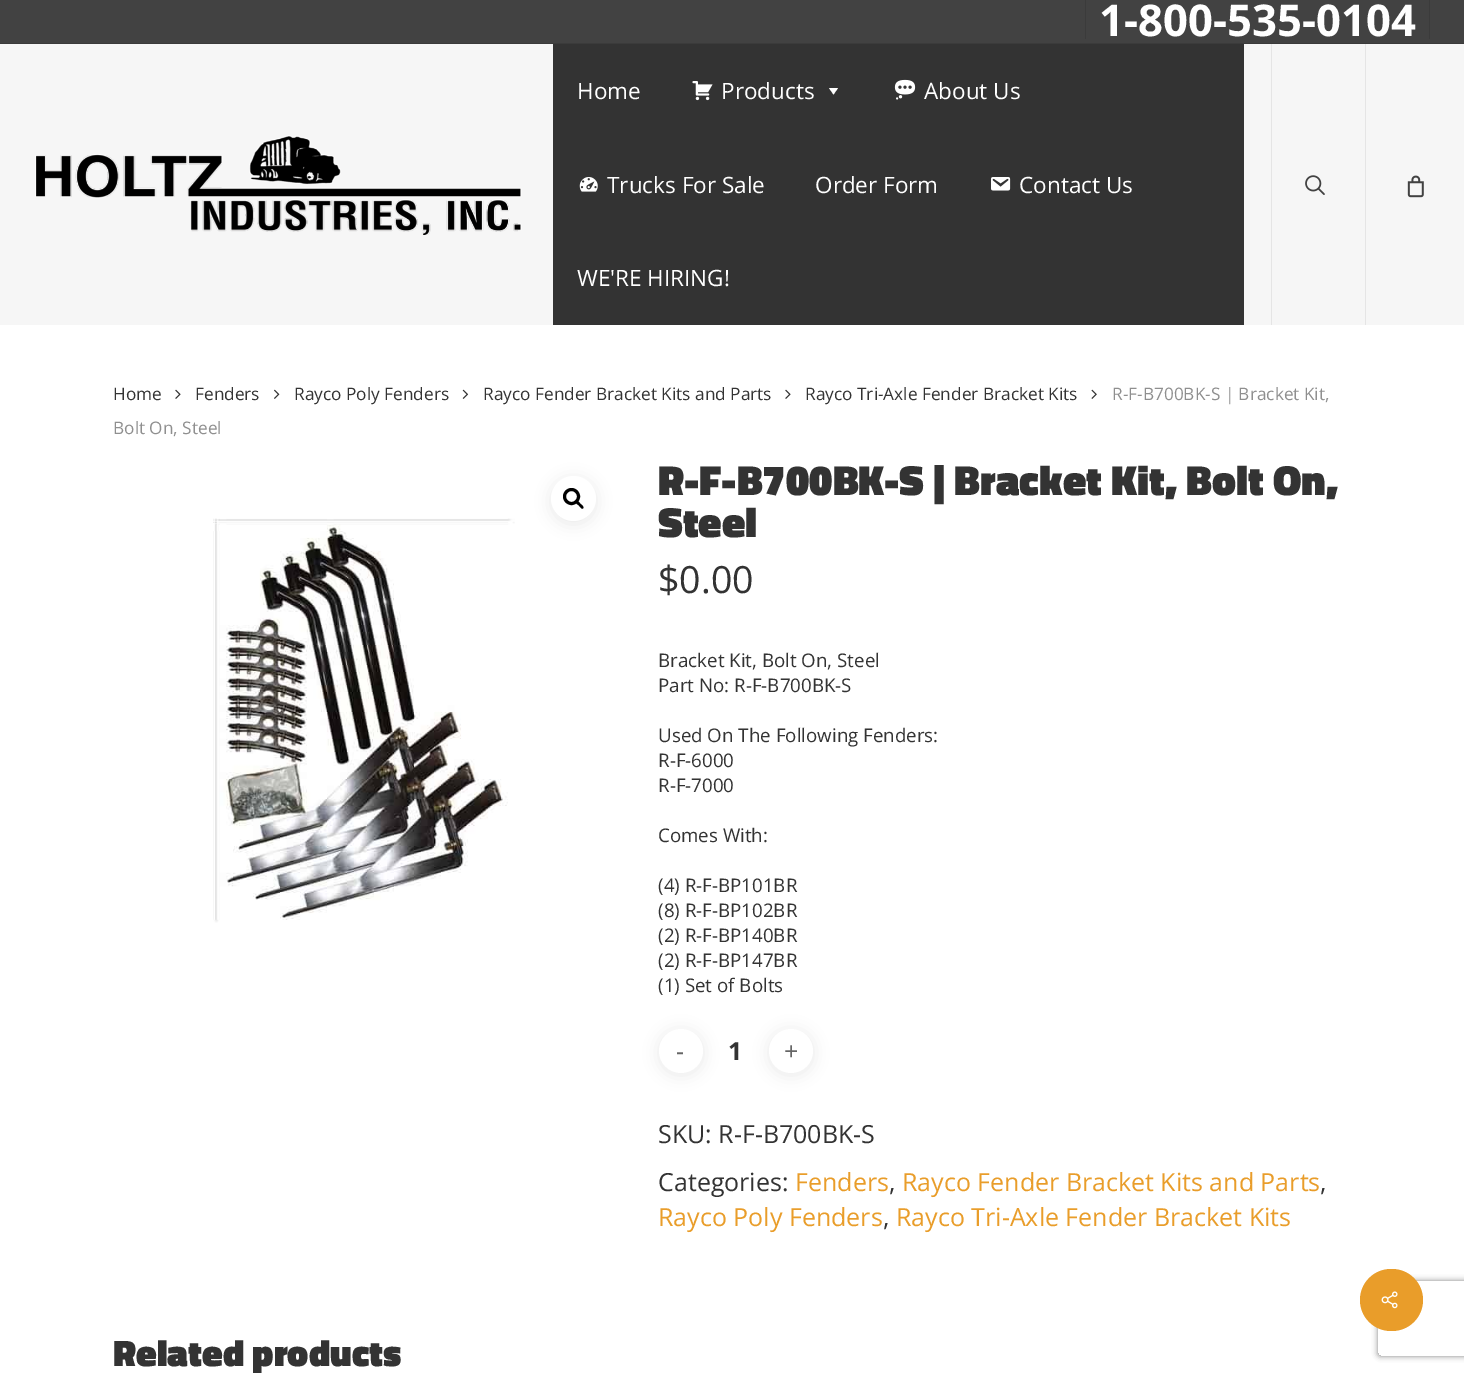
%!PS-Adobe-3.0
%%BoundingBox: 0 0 1464 1373
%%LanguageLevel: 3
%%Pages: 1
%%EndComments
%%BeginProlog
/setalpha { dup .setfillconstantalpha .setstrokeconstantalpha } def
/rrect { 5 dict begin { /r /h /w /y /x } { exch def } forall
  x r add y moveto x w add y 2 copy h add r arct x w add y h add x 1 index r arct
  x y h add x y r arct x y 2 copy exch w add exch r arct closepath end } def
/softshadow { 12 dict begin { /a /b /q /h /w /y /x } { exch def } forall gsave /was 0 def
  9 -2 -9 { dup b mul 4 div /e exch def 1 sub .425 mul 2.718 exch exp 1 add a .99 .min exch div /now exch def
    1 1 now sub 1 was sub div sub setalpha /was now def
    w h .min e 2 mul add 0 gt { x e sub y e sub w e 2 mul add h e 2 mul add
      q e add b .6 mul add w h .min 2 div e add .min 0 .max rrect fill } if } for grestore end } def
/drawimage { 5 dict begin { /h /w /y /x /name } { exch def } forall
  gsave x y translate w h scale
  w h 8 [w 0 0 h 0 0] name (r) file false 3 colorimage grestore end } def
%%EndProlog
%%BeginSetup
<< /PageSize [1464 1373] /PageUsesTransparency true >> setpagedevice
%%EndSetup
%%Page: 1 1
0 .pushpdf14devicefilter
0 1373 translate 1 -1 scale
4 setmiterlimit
1 setgray
0 0 1464 1373 rectfill
0.259 setgray
0 0 1464 43 rectfill
0.231 setgray
0 43 1464 1 rectfill
1429 0 1 39 rectfill
1085 0 1 39 rectfill
0.965 setgray
0 44 1464 281 rectfill
(images/1.raw) 35 135 487 100 drawimage
0.2 setgray
553 44 691 281 rectfill
(images/2.raw) 692 81 21 20 drawimage
1 setgray
newpath 838 88 moveto 833.5 94.5 lineto 829 88 lineto closepath fill
(images/3.raw) 894 79 22 21 drawimage
(images/4.raw) 579 177 19 15 drawimage
(images/5.raw) 991 177 20 14 drawimage
0.898 setgray
1271 44 1 281 rectfill
(images/6.raw) 1305 175 20 20 drawimage
1365 44 1 281 rectfill
(images/7.raw) 1407 175 17 23 drawimage
(images/8.raw) 175 389 6 10 drawimage
(images/9.raw) 274 389 6 10 drawimage
(images/10.raw) 462 389 7 10 drawimage
(images/8.raw) 785 389 6 10 drawimage
(images/11.raw) 1091 389 6 10 drawimage
0 setgray
551 479 45 45 22.5 7.5 0.08 softshadow
1 setgray
newpath 573.5 498.5 22.5 0 360 arc closepath fill
0 setgray
3 setlinewidth
newpath 571.5 496.5 7 0 360 arc closepath stroke
newpath 576 501 moveto 577.5 500 580 503 580.5 504 curveto 581.5 504.5 584.5 507 583 508.5 curveto 582 509.5 579.5 506.5 579 505.5 curveto 578 505 574.5 502.5 576 501 curveto closepath fill
(images/12.raw) 213 518 302 405 drawimage
659 1031 44 44 22 7.5 0.08 softshadow
1 setgray
newpath 681 1051 22 0 360 arc closepath fill
0 setgray
769 1031 44 44 22 7.5 0.08 softshadow
1 setgray
newpath 791 1051 22 0 360 arc closepath fill
gsave
newpath 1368 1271 moveto 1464 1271 lineto 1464 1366 lineto 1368 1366 lineto closepath 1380.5 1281 moveto 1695.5 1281 lineto 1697 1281 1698 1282 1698 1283.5 curveto 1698 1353.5 lineto 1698 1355 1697 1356 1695.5 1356 curveto 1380.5 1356 lineto 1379 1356 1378 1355 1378 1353.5 curveto 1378 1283.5 lineto 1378 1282 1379 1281 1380.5 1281 curveto closepath eoclip newpath
0.502 setgray
1378 1281 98 75 2.5 3 1 softshadow
grestore
0.914 0.616 0.165 setrgbcolor
1360 1269 63 62 31 rrect fill
(images/13.raw) 1381 1291 17 18 drawimage
/OpenSans-Bold [43.75 0 0 -43.75 0 0] selectfont
1 setgray
1099 36 moveto (1-800-535-0104) show
/OpenSans-Regular [22.5 0 0 -22.5 0 0] selectfont
577 99 moveto (Home) show
721 99 moveto (Products) show
924 99 moveto (About Us) show
607 193 moveto (Trucks For Sale) show
815 193 moveto (Order Form) show
1019 193 moveto (Contact Us) show
577 286 moveto (WE'RE HIRING!) show
/OpenSans-Regular [17.25 0 0 -17.25 0 0] selectfont
0.2 setgray
113 400 moveto (Home) show
195 400 moveto (Fenders) show
294 400 moveto (Rayco Poly Fenders) show
483 400 moveto (Rayco Fender Bracket Kits and Parts) show
805 400 moveto (Rayco Tri-Axle Fender Bracket Kits) show
0.561 setgray
1112 400 moveto (R-F-B700BK-S | Bracket Kit,) show
113 434 moveto (Bolt On, Steel) show
/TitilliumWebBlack-Black [42.5 0 0 -42.5 0 0] selectfont
0.2 setgray
658 495 moveto (R-F-B700BK-S | Bracket Kit, Bolt On,) show
658 537 moveto (Steel) show
/OpenSans-Regular [37.5 0 0 -37.5 0 0] selectfont
658 593 moveto ($0.00) show
/OpenSans-Regular [18.75 0 0 -18.75 0 0] selectfont
658 667 moveto (Bracket Kit, Bolt On, Steel) show
658 692 moveto (Part No: R-F-B700BK-S) show
658 742 moveto (Used On The Following Fenders:) show
658 767 moveto (R-F-6000) show
658 792 moveto (R-F-7000) show
658 842 moveto (Comes With:) show
658 892 moveto (\(4\) R-F-BP101BR) show
658 917 moveto (\(8\) R-F-BP102BR) show
658 942 moveto (\(2\) R-F-BP140BR) show
658 967 moveto (\(2\) R-F-BP147BR) show
658 992 moveto (\(1\) Set of Bolts) show
/OpenSans-Regular [25 0 0 -25 0 0] selectfont
0.4 setgray
676 1060 moveto (-) show
/OpenSans-Bold [25 0 0 -25 0 0] selectfont
0.2 setgray
728 1060 moveto (1) show
/OpenSans-Regular [25 0 0 -25 0 0] selectfont
0.4 setgray
784 1060 moveto (+) show
0.2 setgray
658 1143 moveto (SKU: R-F-B700BK-S) show
658 1191 moveto (Categories:) show
0.914 0.616 0.165 setrgbcolor
795 1191 moveto (Fenders) show
0.2 setgray
889 1191 moveto (,) show
0.914 0.616 0.165 setrgbcolor
902 1191 moveto (Rayco Fender Bracket Kits and Parts) show
0.2 setgray
1320 1191 moveto (,) show
0.914 0.616 0.165 setrgbcolor
658 1226 moveto (Rayco Poly Fenders) show
0.2 setgray
883 1226 moveto (,) show
0.914 0.616 0.165 setrgbcolor
896 1226 moveto (Rayco Tri-Axle Fender Bracket Kits) show
/TitilliumWebBlack-Black [37.5 0 0 -37.5 0 0] selectfont
0.2 setgray
113 1366 moveto (Related products) show
.poppdf14devicefilter showpage
%%EOF
